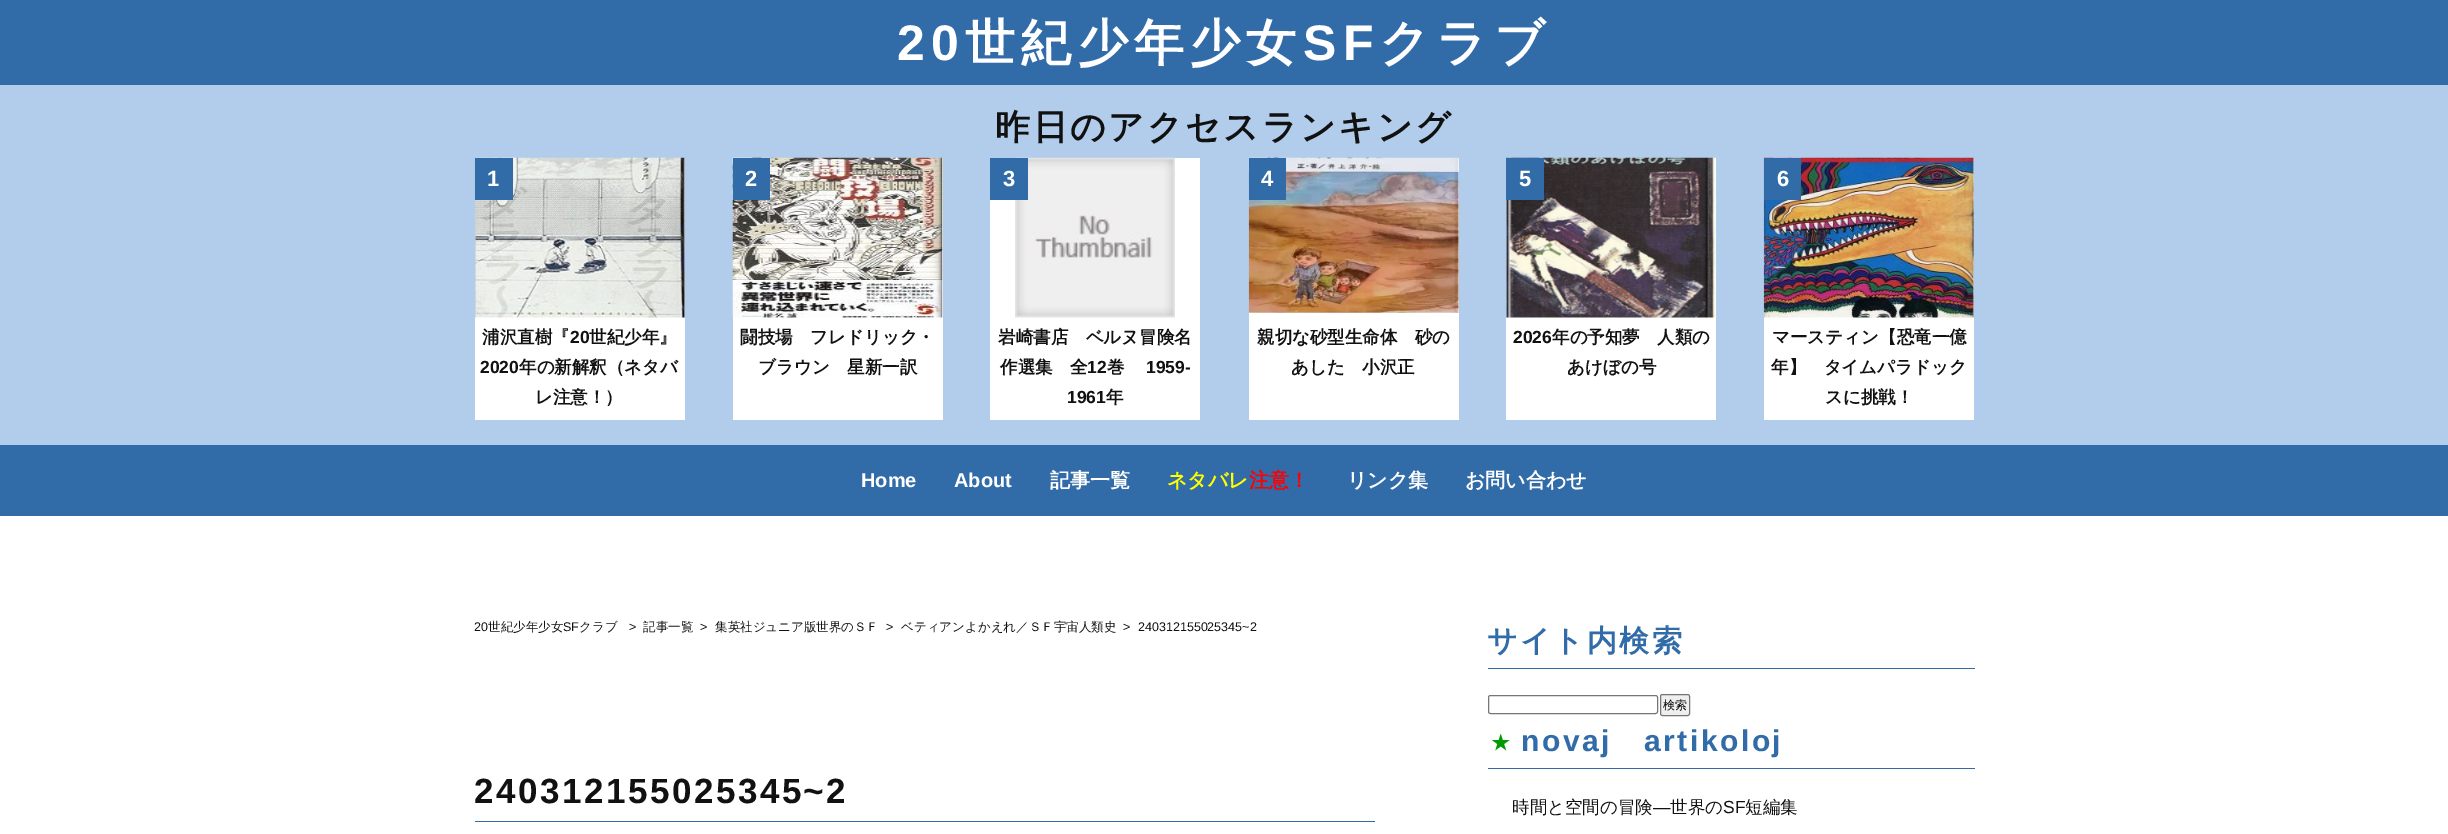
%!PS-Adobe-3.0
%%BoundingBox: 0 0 2448 834
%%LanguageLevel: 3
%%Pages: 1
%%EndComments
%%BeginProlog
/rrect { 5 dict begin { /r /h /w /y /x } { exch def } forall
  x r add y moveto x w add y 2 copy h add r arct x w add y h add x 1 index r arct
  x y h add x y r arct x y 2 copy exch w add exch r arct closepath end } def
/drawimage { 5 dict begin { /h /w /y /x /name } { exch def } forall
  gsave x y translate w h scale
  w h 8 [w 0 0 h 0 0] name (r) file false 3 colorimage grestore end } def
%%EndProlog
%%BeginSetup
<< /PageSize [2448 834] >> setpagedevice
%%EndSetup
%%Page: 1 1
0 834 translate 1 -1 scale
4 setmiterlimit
1 setgray
0 0 2448 834 rectfill
0.192 0.424 0.659 setrgbcolor
0 0 2448 85 rectfill
0.694 0.804 0.922 setrgbcolor
0 85 2448 360 rectfill
1 setgray
475 317 210 103 rectfill
(images/1.raw) 475 157 210 161 drawimage
0.192 0.424 0.659 setrgbcolor
475 158 38 42 rectfill
1 setgray
733 158 210 262 rectfill
(images/2.raw) 732 157 211 161 drawimage
0.192 0.424 0.659 setrgbcolor
733 158 37 42 rectfill
1 setgray
990 158 210 262 rectfill
(images/3.raw) 1015 157 160 161 drawimage
0.192 0.424 0.659 setrgbcolor
990 158 38 42 rectfill
1 setgray
1249 158 210 262 rectfill
(images/4.raw) 1248 157 211 156 drawimage
0.192 0.424 0.659 setrgbcolor
1249 158 37 42 rectfill
1 setgray
1506 200 210 220 rectfill
(images/5.raw) 1506 157 211 161 drawimage
0.192 0.424 0.659 setrgbcolor
1506 158 38 42 rectfill
1 setgray
1764 158 210 262 rectfill
(images/6.raw) 1763 157 211 161 drawimage
0.192 0.424 0.659 setrgbcolor
1764 158 37 42 rectfill
0 445 2448 71 rectfill
475 821 900 1 rectfill
1488 668 487 1 rectfill
0.463 setgray
1488.5 695.5 169 18 2 rrect stroke
0.937 setgray
1660.5 694.5 29 21 2 rrect gsave fill grestore
0.463 setgray
stroke
0.192 0.424 0.659 setrgbcolor
1488 768 487 1 rectfill
/LiberationSans-Bold [50 0 0 -50 0 0] selectfont
1 setgray
897 60 moveto 6.25 0 (20) ashow
/WenQuanYiZenHei-Bold [50 0 0 -50 0 0] selectfont
965 60 moveto 6.25 0 (世紀少年少女) ashow
/LiberationSans-Bold [50 0 0 -50 0 0] selectfont
1303 60 moveto 6.25 0 (SF) ashow
/WenQuanYiZenHei-Bold [50 0 0 -50 0 0] selectfont
1379 60 moveto 6.25 0 (クラブ) ashow
/WenQuanYiZenHei-Bold [35 0 0 -35 0 0] selectfont
0.067 setgray
995 139 moveto 2.5 0 (昨日のアクセスランキング) ashow
/LiberationSans-Bold [22 0 0 -22 0 0] selectfont
1 setgray
487 186 moveto (1) show
/WenQuanYiZenHei-Bold [17.5 0 0 -17.5 0 0] selectfont
0.067 setgray
482 343 moveto (浦沢直樹『) show
/LiberationSans-Bold [17.5 0 0 -17.5 0 0] selectfont
570 343 moveto (20) show
/WenQuanYiZenHei-Bold [17.5 0 0 -17.5 0 0] selectfont
589 343 moveto (世紀少年』) show
/LiberationSans-Bold [17.5 0 0 -17.5 0 0] selectfont
480 373 moveto (2020) show
/WenQuanYiZenHei-Bold [17.5 0 0 -17.5 0 0] selectfont
519 373 moveto (年の新解釈（ネタバ) show
535 403 moveto (レ注意！）) show
/LiberationSans-Bold [22 0 0 -22 0 0] selectfont
1 setgray
745 186 moveto (2) show
/WenQuanYiZenHei-Bold [17.5 0 0 -17.5 0 0] selectfont
0.067 setgray
740 343 moveto (闘技場　フレドリック・) show
758 373 moveto (ブラウン　星新一訳) show
/LiberationSans-Bold [22 0 0 -22 0 0] selectfont
1 setgray
1003 186 moveto (3) show
/WenQuanYiZenHei-Bold [17.5 0 0 -17.5 0 0] selectfont
0.067 setgray
998 343 moveto (岩崎書店　ベルヌ冒険名) show
1000 373 moveto (作選集　全) show
/LiberationSans-Bold [17.5 0 0 -17.5 0 0] selectfont
1087 373 moveto (12) show
/WenQuanYiZenHei-Bold [17.5 0 0 -17.5 0 0] selectfont
1107 373 moveto (巻) show
/LiberationSans-Bold [17.5 0 0 -17.5 0 0] selectfont
1146 373 moveto (1959-) show
1067 403 moveto (1961) show
/WenQuanYiZenHei-Bold [17.5 0 0 -17.5 0 0] selectfont
1106 403 moveto (年) show
/LiberationSans-Bold [22 0 0 -22 0 0] selectfont
1 setgray
1261 186 moveto (4) show
/WenQuanYiZenHei-Bold [17.5 0 0 -17.5 0 0] selectfont
0.067 setgray
1257 343 moveto (親切な砂型生命体　砂の) show
1291 373 moveto (あした　小沢正) show
/LiberationSans-Bold [22 0 0 -22 0 0] selectfont
1 setgray
1519 186 moveto (5) show
/LiberationSans-Bold [17.5 0 0 -17.5 0 0] selectfont
0.067 setgray
1513 343 moveto (2026) show
/WenQuanYiZenHei-Bold [17.5 0 0 -17.5 0 0] selectfont
1552 343 moveto (年の予知夢　人類の) show
1567 373 moveto (あけぼの号) show
/LiberationSans-Bold [22 0 0 -22 0 0] selectfont
1 setgray
1777 186 moveto (6) show
/WenQuanYiZenHei-Bold [17.5 0 0 -17.5 0 0] selectfont
0.067 setgray
1772 343 moveto (マースティン【恐竜一億) show
1771 373 moveto (年】　タイムパラドック) show
1825 403 moveto (スに挑戦！) show
/LiberationSans-Bold [20 0 0 -20 0 0] selectfont
1 setgray
861 487 moveto (Home) show
954 487 moveto (About) show
/WenQuanYiZenHei-Bold [20 0 0 -20 0 0] selectfont
1050 487 moveto (記事一覧) show
1 1 0 setrgbcolor
1167 487 moveto (ネタバレ) show
1 0 0 setrgbcolor
1249 487 moveto (注意！) show
1 setgray
1347 487 moveto (リンク集) show
1465 487 moveto (お問い合わせ) show
/LiberationSans-Regular [12.5 0 0 -12.5 0 0] selectfont
0.067 setgray
474 631 moveto (20) show
/WenQuanYiZenHei-Medium [12.5 0 0 -12.5 0 0] selectfont
488 631 moveto (世紀少年少女) show
/LiberationSans-Regular [12.5 0 0 -12.5 0 0] selectfont
563 631 moveto (SF) show
/WenQuanYiZenHei-Medium [12.5 0 0 -12.5 0 0] selectfont
579 631 moveto (クラブ) show
/LiberationSans-Regular [12.5 0 0 -12.5 0 0] selectfont
629 631 moveto (>) show
/WenQuanYiZenHei-Medium [12.5 0 0 -12.5 0 0] selectfont
643 631 moveto (記事一覧) show
/LiberationSans-Regular [12.5 0 0 -12.5 0 0] selectfont
700 631 moveto (>) show
/WenQuanYiZenHei-Medium [12.5 0 0 -12.5 0 0] selectfont
715 631 moveto (集英社ジュニア版世界のＳＦ) show
/LiberationSans-Regular [12.5 0 0 -12.5 0 0] selectfont
886 631 moveto (>) show
/WenQuanYiZenHei-Medium [12.5 0 0 -12.5 0 0] selectfont
901 631 moveto (ベティアンよかえれ／ＳＦ宇宙人類史) show
/LiberationSans-Regular [12.5 0 0 -12.5 0 0] selectfont
1123 631 moveto (>) show
1138 631 moveto (240312155025345~2) show
/LiberationSans-Bold [35 0 0 -35 0 0] selectfont
474 803 moveto 2.5 0 (240312155025345~2) ashow
/WenQuanYiZenHei-Bold [30 0 0 -30 0 0] selectfont
0.192 0.424 0.659 setrgbcolor
1487 651 moveto 2.5 0 (サイト内検索) ashow
/WenQuanYiZenHei-Medium [12 0 0 -12 0 0] selectfont
0 setgray
1663 709 moveto (検索) show
/DejaVuSans-Bold [21 0 0 -21 0 0] selectfont
0 0.604 0 setrgbcolor
1491 750 moveto 2.5 0 (★) ashow
/LiberationSans-Bold [30 0 0 -30 0 0] selectfont
0.192 0.424 0.659 setrgbcolor
1521 751 moveto 2.5 0 (novaj) ashow
1644 751 moveto 2.5 0 (artikoloj) ashow
/WenQuanYiZenHei-Medium [17.5 0 0 -17.5 0 0] selectfont
0.067 setgray
1512 813 moveto (時間と空間の冒険) show
/LiberationSans-Regular [17.5 0 0 -17.5 0 0] selectfont
1653 813 moveto (―) show
/WenQuanYiZenHei-Medium [17.5 0 0 -17.5 0 0] selectfont
1670 813 moveto (世界の) show
/LiberationSans-Regular [17.5 0 0 -17.5 0 0] selectfont
1723 813 moveto (SF) show
/WenQuanYiZenHei-Medium [17.5 0 0 -17.5 0 0] selectfont
1745 813 moveto (短編集) show
showpage
%%EOF
